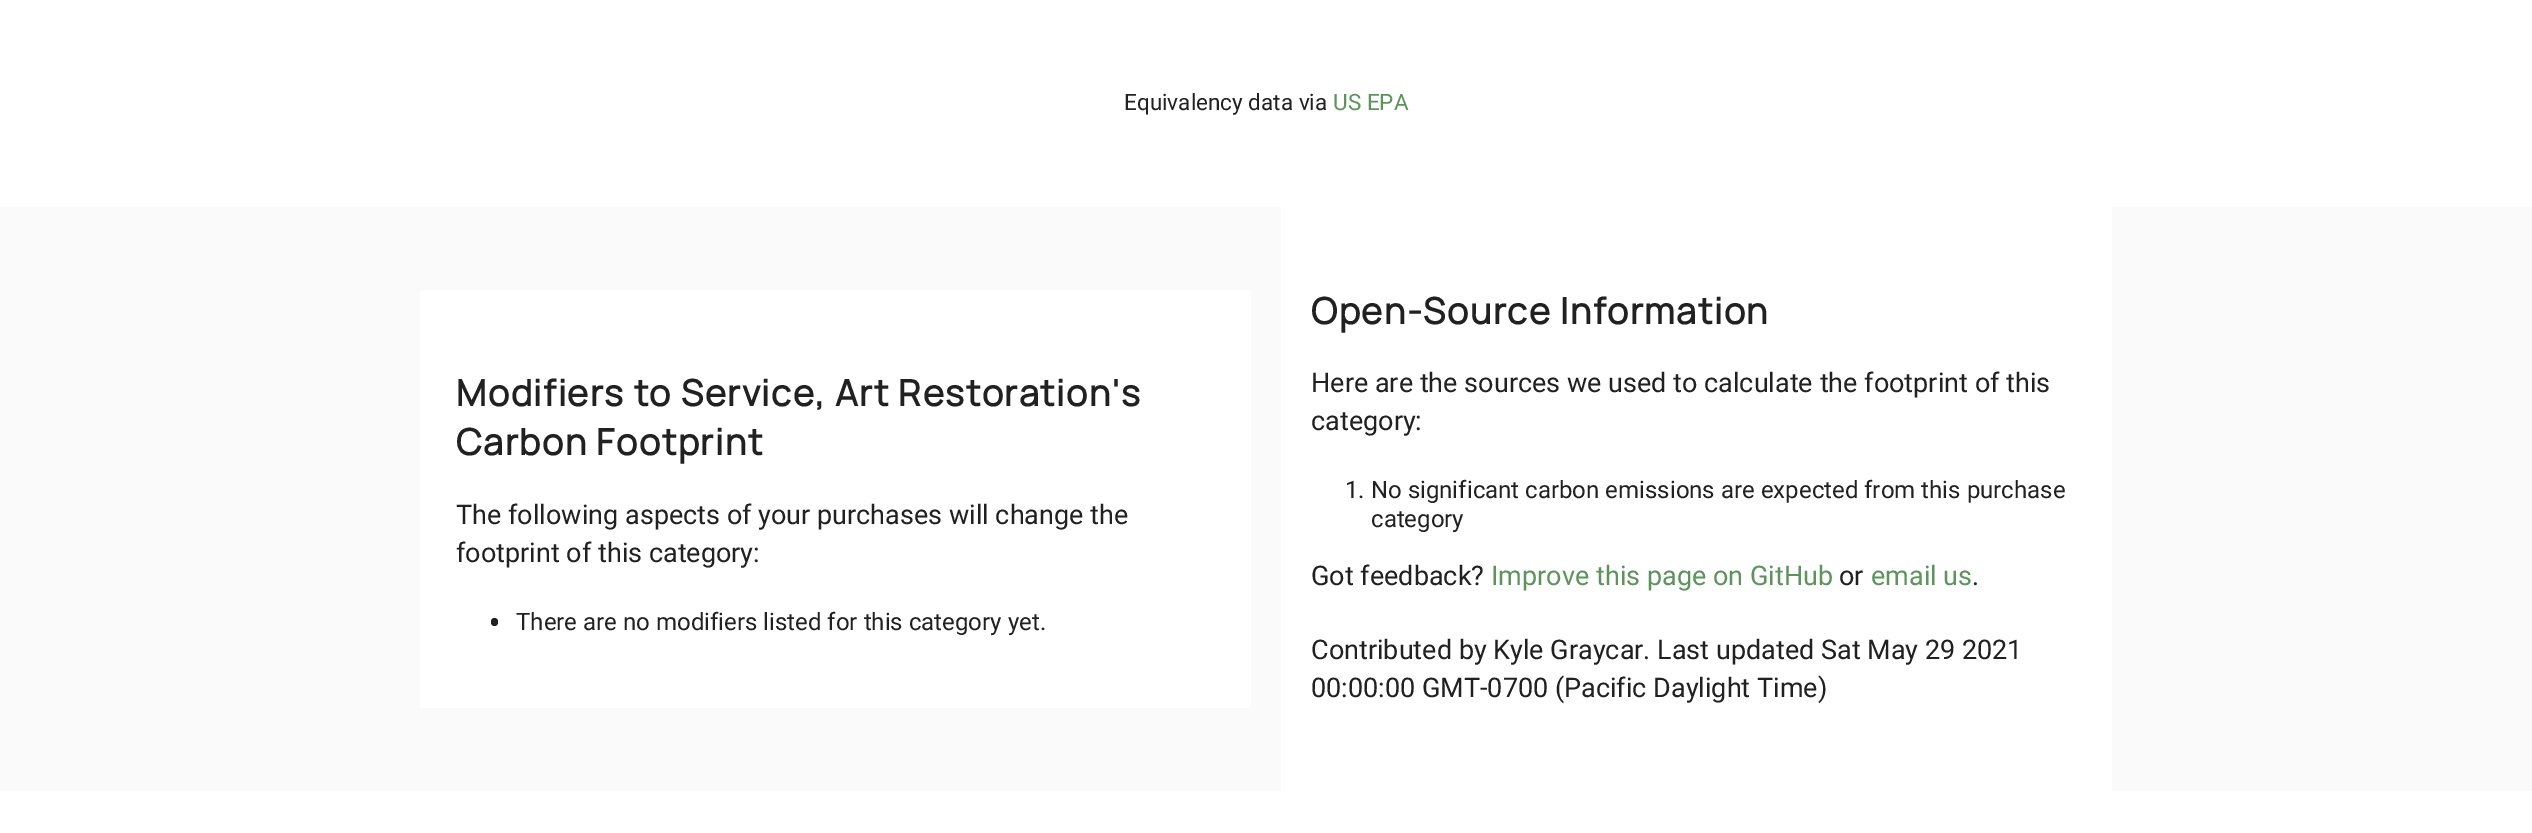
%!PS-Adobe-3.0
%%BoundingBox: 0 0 2532 833
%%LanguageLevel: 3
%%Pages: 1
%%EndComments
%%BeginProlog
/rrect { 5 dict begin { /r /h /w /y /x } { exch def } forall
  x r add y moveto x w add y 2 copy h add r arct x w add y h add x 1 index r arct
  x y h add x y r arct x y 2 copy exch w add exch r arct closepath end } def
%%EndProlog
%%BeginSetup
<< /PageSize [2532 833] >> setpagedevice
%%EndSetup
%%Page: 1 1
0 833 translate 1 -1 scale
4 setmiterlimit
0.98 setgray
0 0 2532 833 rectfill
1 setgray
0 0 2532 207 rectfill
420 290 831 418 rectfill
0.129 setgray
491 618 7 8 3.5 rrect fill
1 setgray
1281 207 831 584 rectfill
0 791 2532 42 rectfill
/Roboto-Regular [22.5 0 0 -22.5 0 0] selectfont
0.129 setgray
1124 110 moveto (Equivalency data via) show
0.361 0.58 0.357 setrgbcolor
1333 110 moveto (US EPA) show
/Manrope-Bold [36 0 0 -36 0 0] selectfont
0.129 setgray
456 406 moveto 1.5 0 (Modifiers to Service, Art Restoration's) ashow
456 455 moveto 1.5 0 (Carbon Footprint) ashow
/Roboto-Regular [27 0 0 -27 0 0] selectfont
456 524 moveto (The following aspects of your purchases will change the) show
456 562 moveto (footprint of this category:) show
/Roboto-Regular [24 0 0 -24 0 0] selectfont
516 630 moveto (There are no modifiers listed for this category yet.) show
/Manrope-Bold [36 0 0 -36 0 0] selectfont
1311 324 moveto 1.5 0 (Open-Source Information) ashow
/Roboto-Regular [27 0 0 -27 0 0] selectfont
1311 392 moveto (Here are the sources we used to calculate the footprint of this) show
1311 430 moveto (category:) show
/Roboto-Regular [24 0 0 -24 0 0] selectfont
1345 498 moveto (1. No significant carbon emissions are expected from this purchase) show
1371 527 moveto (category) show
/Roboto-Regular [27 0 0 -27 0 0] selectfont
1311 585 moveto (Got feedback?) show
0.361 0.58 0.357 setrgbcolor
1491 585 moveto (Improve this page on GitHub) show
0.129 setgray
1839 585 moveto (or) show
0.361 0.58 0.357 setrgbcolor
1871 585 moveto (email us) show
0.129 setgray
1972 585 moveto (.) show
1311 659 moveto (Contributed by Kyle Graycar. Last updated Sat May 29 2021) show
1311 697 moveto (00:00:00 GMT-0700 \(Pacific Daylight Time\)) show
showpage
%%EOF
